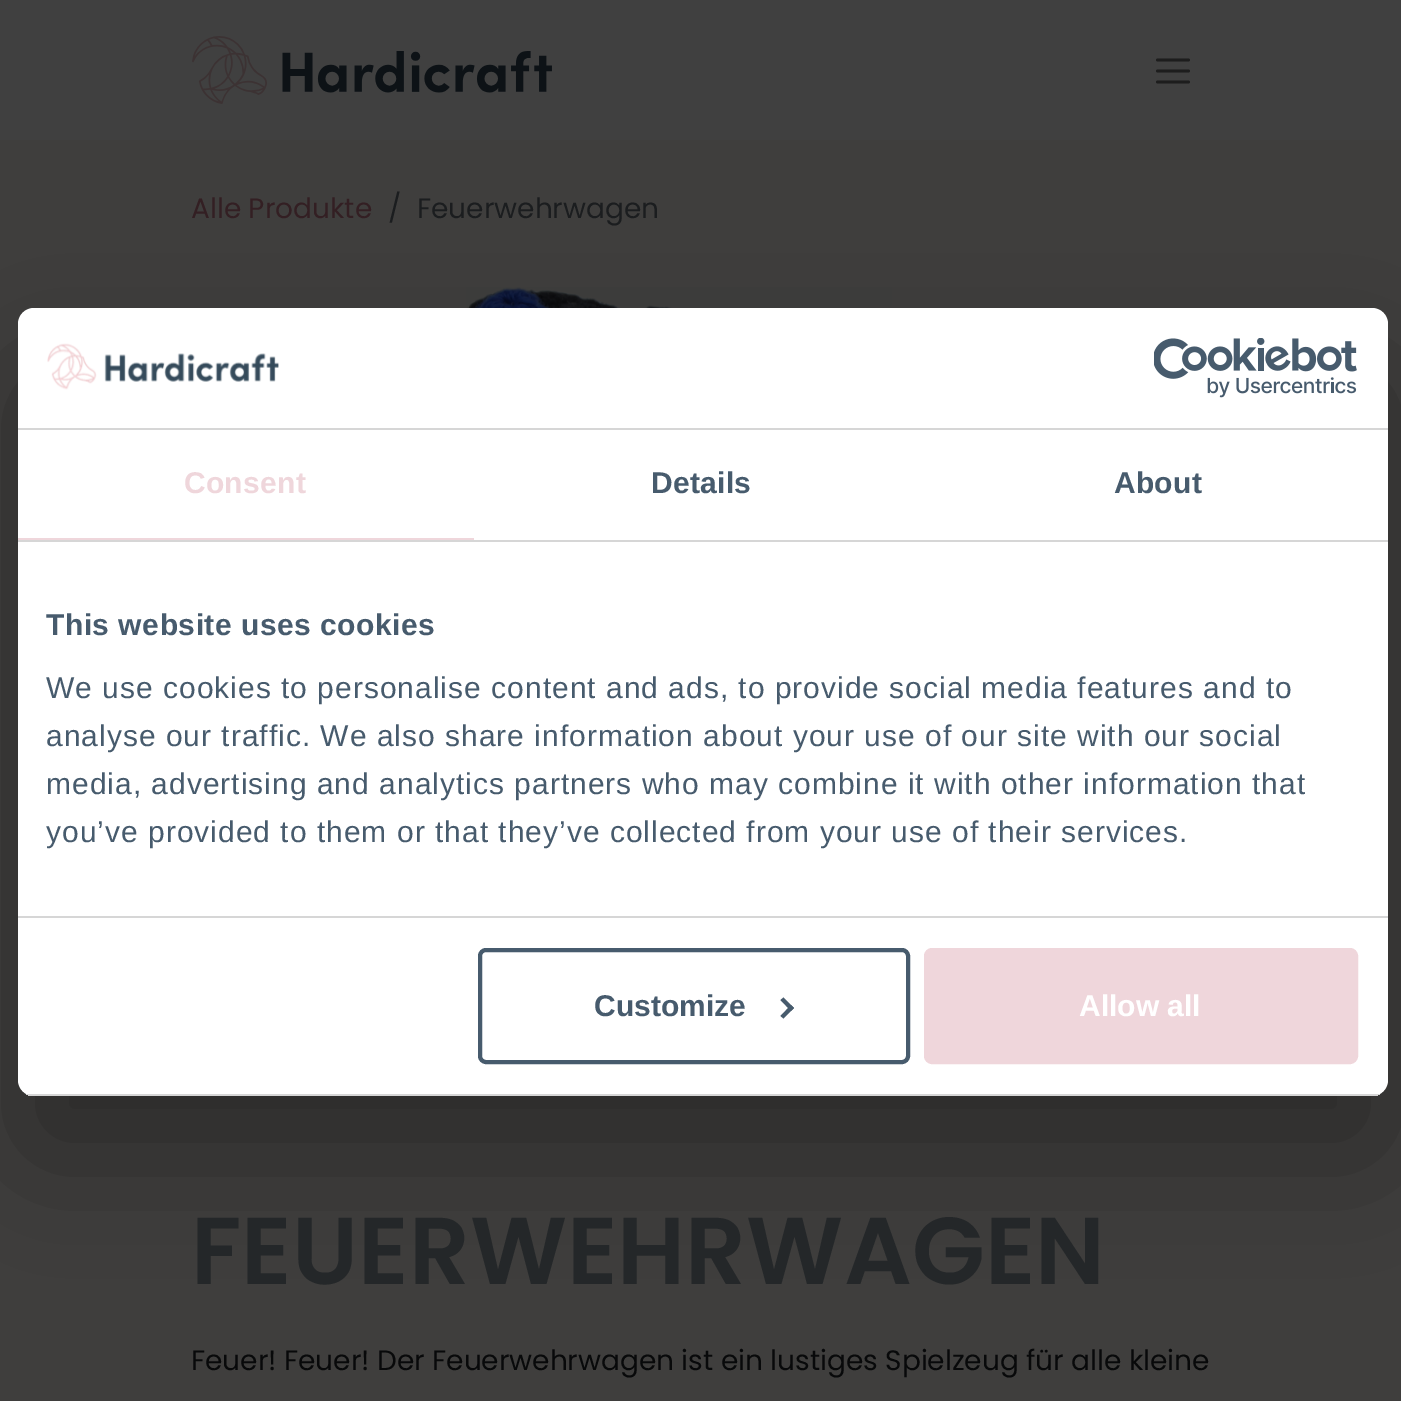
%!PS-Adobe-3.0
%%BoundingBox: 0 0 1401 1401
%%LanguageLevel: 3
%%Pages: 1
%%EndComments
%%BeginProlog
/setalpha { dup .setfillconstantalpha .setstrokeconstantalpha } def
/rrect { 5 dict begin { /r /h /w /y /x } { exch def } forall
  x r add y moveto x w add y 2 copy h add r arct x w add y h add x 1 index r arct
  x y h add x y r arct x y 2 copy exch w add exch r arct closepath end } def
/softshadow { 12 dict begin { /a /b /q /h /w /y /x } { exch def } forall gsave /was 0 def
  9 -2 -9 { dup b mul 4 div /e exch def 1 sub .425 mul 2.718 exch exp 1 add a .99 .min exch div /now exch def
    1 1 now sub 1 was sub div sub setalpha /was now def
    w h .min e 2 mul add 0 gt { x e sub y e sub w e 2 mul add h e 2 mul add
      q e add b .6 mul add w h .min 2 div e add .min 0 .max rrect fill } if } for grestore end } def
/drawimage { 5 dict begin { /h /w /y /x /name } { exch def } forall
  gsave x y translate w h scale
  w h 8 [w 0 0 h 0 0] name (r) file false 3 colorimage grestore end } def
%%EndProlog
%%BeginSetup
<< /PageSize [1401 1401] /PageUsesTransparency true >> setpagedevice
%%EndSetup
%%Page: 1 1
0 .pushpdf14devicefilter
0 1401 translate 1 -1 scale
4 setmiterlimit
0.251 setgray
0 0 1401 1401 rectfill
(images/1.raw) 192 36 360 68 drawimage
0.114 setgray
2.8 setlinewidth
1 setlinecap
newpath 1157.5 60 moveto 1188.5 60 lineto 1157.5 71 moveto 1188.5 71 lineto 1157.5 82 moveto 1188.5 82 lineto stroke
0.247 0.243 0.239 setrgbcolor
0 140 1401 1261 rectfill
(images/2.raw) 466 287 426 21 drawimage
0 setgray
18 372 1370 788 16 68 0.3 softshadow
1 setgray
18 308 1370 788 16 rrect fill
0.839 setgray
18 428 1370 2 rectfill
(images/3.raw) 47 343 232 47 drawimage
(images/4.raw) 1154 338 203 60 drawimage
18 540 1370 2 rectfill
0.937 0.839 0.859 setrgbcolor
18 538 456 2 rectfill
0.839 setgray
18 916 1370 2 rectfill
gsave
18 308 1370 788 16 rrect clip newpath
18 1094 1370 2 rectfill
grestore
0.278 0.357 0.427 setrgbcolor
4 setlinewidth
0 setlinecap
480 950 428 112 6 rrect stroke
newpath 783.5 997.5 moveto 794 1008 lineto 791 1011 lineto 780.5 1000 lineto closepath fill
newpath 791 1005 moveto 794 1008 lineto 783.5 1018.5 lineto 780.5 1016 lineto closepath fill
0.937 0.839 0.859 setrgbcolor
926 950 430 112 6 rrect gsave fill grestore
stroke
/Poppins-Regular [28 0 0 -28 0 0] selectfont
0.2 0.122 0.137 setrgbcolor
191 218 moveto (Alle Produkte) show
0.106 0.114 0.122 setrgbcolor
388 218 moveto (/) show
417 218 moveto (Feuerwehrwagen) show
/Poppins-SemiBold [95 0 0 -95 0 0] selectfont
0.141 0.153 0.161 setrgbcolor
191 1284 moveto (FEUERWEHRWAGEN) show
/Poppins-Regular [28 0 0 -28 0 0] selectfont
0.031 0.035 0.039 setrgbcolor
191 1370 moveto (Feuer! Feuer! Der Feuerwehrwagen ist ein lustiges Spielzeug für alle kleine) show
/LiberationSans-Bold [30 0 0 -30 0 0] selectfont
0.937 0.839 0.859 setrgbcolor
184 493 moveto 0.25 0 (Consent) ashow
0.278 0.357 0.427 setrgbcolor
651 493 moveto 0.25 0 (Details) ashow
1114 493 moveto 0.25 0 (About) ashow
46 635 moveto 0.5 0 (This website uses cookies) ashow
/LiberationSans-Regular [30 0 0 -30 0 0] selectfont
46 698 moveto 1 0 (We use cookies to personalise content and ads, to provide social media features and to) ashow
46 746 moveto 1 0 (analyse our traffic. We also share information about your use of our site with our social) ashow
46 794 moveto 1 0 (media, advertising and analytics partners who may combine it with other information that) ashow
46 842 moveto 1 0 (you’ve provided to them or that they’ve collected from your use of their services.) ashow
/LiberationSans-Bold [30 0 0 -30 0 0] selectfont
594 1016 moveto (Customize) show
1 setgray
1079 1016 moveto (Allow all) show
.poppdf14devicefilter showpage
%%EOF
